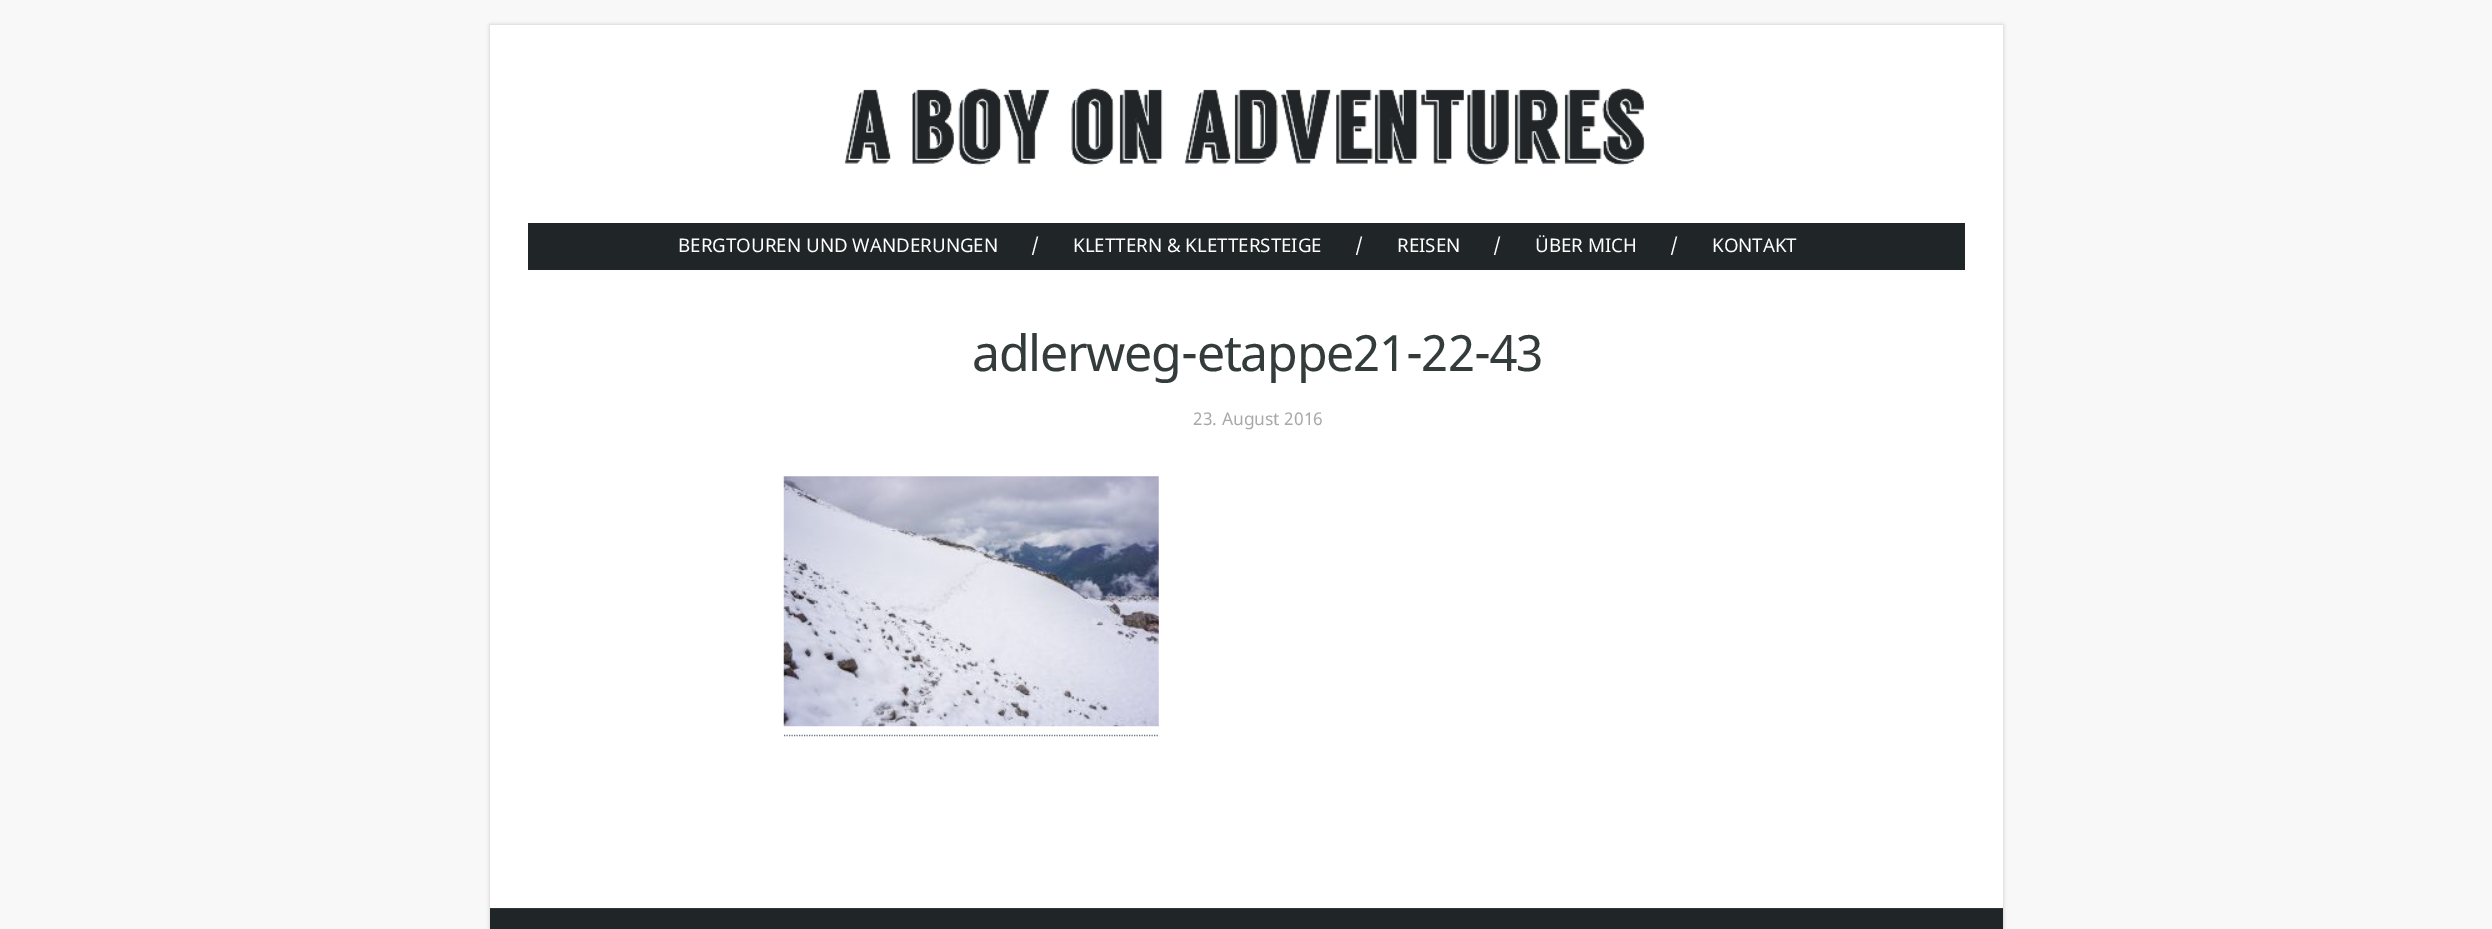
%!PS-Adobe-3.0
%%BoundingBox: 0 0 2492 929
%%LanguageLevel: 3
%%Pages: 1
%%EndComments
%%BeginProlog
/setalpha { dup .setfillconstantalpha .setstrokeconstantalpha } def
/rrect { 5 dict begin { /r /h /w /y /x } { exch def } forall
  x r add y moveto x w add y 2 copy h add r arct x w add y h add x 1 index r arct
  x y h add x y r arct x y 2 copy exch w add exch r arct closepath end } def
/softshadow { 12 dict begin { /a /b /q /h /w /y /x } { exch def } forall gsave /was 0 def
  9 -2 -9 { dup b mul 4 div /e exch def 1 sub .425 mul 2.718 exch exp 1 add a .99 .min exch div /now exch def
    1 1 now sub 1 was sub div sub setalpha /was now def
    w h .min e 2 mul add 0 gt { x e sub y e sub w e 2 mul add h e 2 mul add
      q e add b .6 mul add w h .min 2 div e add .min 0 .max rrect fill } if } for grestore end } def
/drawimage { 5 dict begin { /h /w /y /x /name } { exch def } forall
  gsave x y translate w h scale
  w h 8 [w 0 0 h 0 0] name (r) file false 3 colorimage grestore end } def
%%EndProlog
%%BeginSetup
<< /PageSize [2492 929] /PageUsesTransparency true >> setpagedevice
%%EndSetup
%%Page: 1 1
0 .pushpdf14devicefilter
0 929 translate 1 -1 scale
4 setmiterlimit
0.973 setgray
0 0 2492 929 rectfill
0 setgray
490 25 1513 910 0 2 0.2 softshadow
1 setgray
490 25 1513 883 rectfill
(images/1.raw) 844 88 801 78 drawimage
0.125 0.145 0.157 setrgbcolor
528 223 1437 47 rectfill
(images/2.raw) 783 476 376 251 drawimage
0.4 0.459 0.498 setrgbcolor
1.2 setlinewidth
[1.25 1.25] 0 setdash
newpath 784 735.5 moveto 1159 735.5 lineto stroke
0.125 0.145 0.157 setrgbcolor
490 909 1513 20 rectfill
0.188 0.216 0.235 setrgbcolor
490 908 1513 1 rectfill
/NotoSans-Regular [18.75 0 0 -18.75 0 0] selectfont
1 setgray
678 252 moveto (BERGTOUREN UND WANDERUNGEN) show
1031 252 moveto (/) show
1073 252 moveto (KLETTERN & KLETTERSTEIGE) show
1355 252 moveto (/) show
1397 252 moveto (REISEN) show
1493 252 moveto (/) show
1535 252 moveto (ÜBER MICH) show
1670 252 moveto (/) show
1712 252 moveto (KONTAKT) show
/NotoSans-Regular [50 0 0 -50 0 0] selectfont
0.2 0.231 0.231 setrgbcolor
972 371 moveto -1.25 0 (adlerweg-etappe21-22-43) ashow
/NotoSans-Regular [17.5 0 0 -17.5 0 0] selectfont
0.659 setgray
1193 425 moveto (23. August 2016) show
.poppdf14devicefilter showpage
%%EOF
